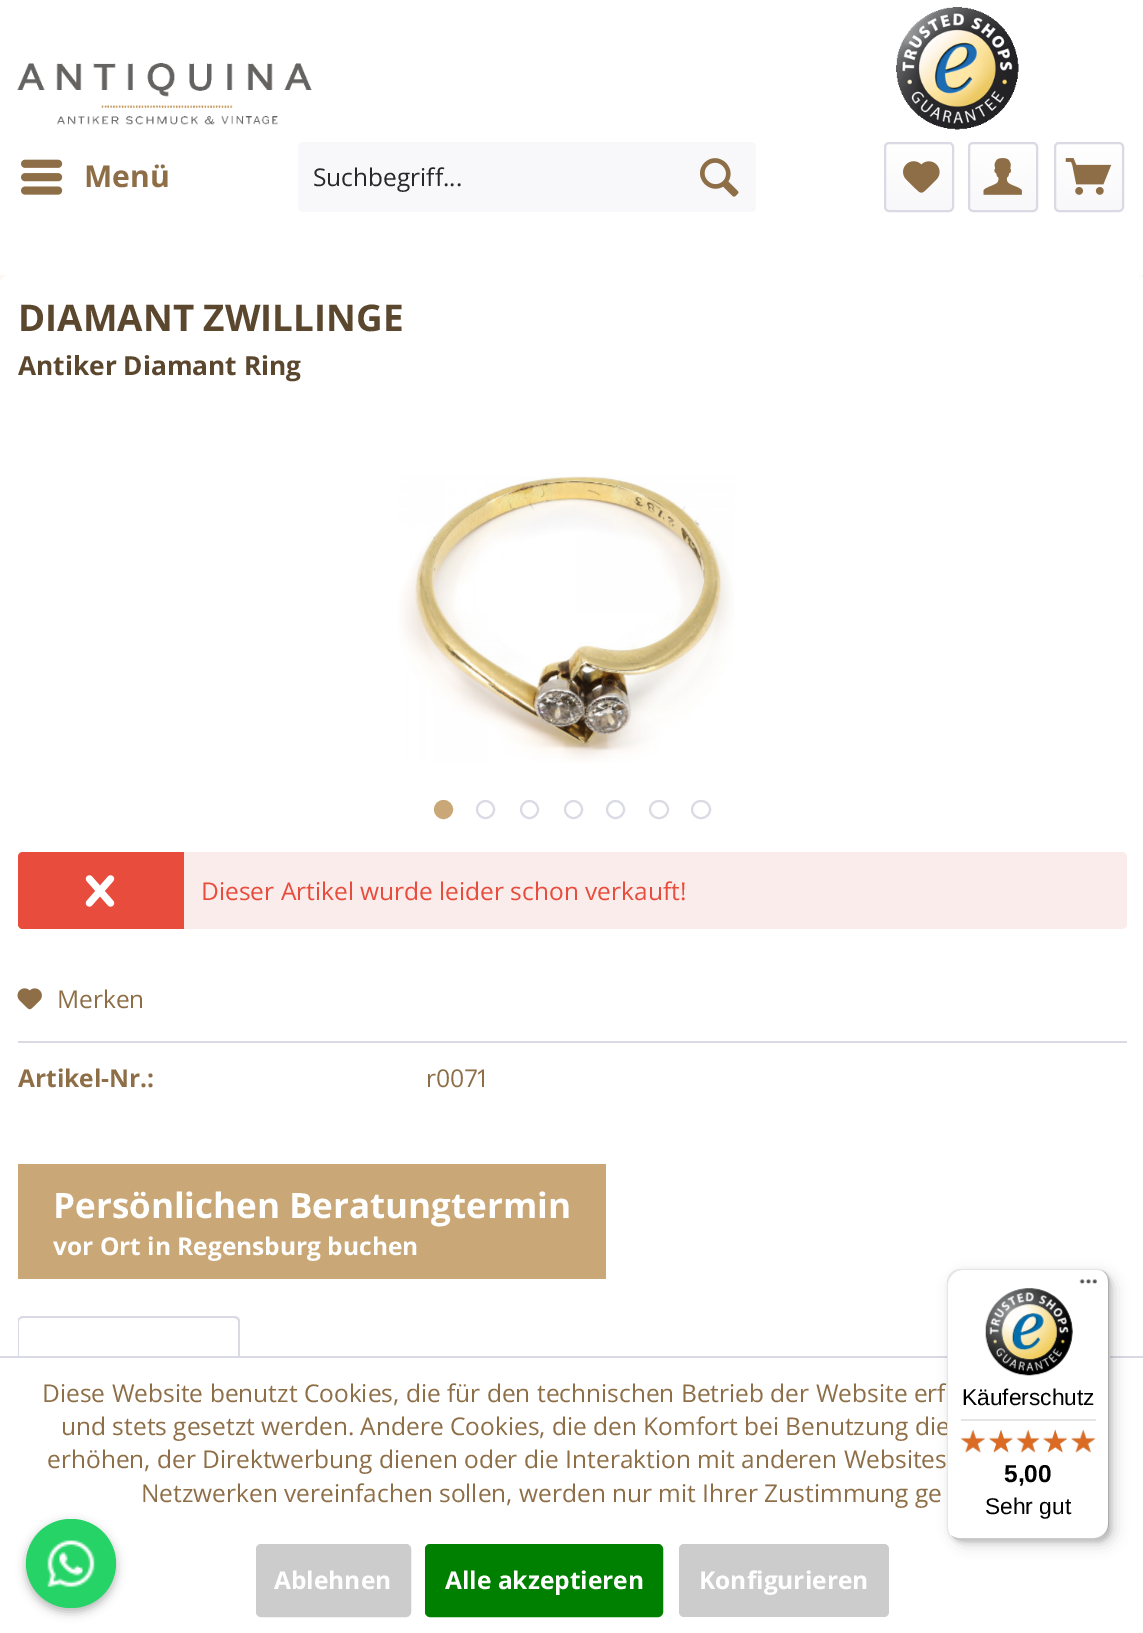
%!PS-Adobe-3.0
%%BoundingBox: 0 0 1143 1633
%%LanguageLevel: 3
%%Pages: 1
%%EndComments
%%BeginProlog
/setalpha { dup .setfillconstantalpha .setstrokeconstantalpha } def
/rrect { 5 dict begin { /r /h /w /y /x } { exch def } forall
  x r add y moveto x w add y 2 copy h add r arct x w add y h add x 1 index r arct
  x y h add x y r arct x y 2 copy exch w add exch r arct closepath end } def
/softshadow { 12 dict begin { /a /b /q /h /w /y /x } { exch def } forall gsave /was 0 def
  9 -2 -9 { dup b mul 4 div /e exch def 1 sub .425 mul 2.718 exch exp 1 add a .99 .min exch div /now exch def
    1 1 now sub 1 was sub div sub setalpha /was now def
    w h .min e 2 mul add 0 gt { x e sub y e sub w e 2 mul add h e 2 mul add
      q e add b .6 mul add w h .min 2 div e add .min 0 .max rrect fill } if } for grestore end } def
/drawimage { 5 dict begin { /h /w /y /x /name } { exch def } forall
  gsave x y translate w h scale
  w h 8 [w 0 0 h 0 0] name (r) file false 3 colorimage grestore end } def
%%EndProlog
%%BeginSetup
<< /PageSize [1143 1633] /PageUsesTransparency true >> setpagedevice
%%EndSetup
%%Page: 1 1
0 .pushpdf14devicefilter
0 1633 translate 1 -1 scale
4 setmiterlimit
0.996 0.965 0.949 setrgbcolor
0 0 1143 1633 rectfill
1 setgray
0 0 1143 275 rectfill
(images/1.raw) 17 63 295 62 drawimage
(images/2.raw) 21 159 42 36 drawimage
(images/3.raw) 896 7 123 123 drawimage
0.973 0.973 0.98 setrgbcolor
298 142 458 70 5 rrect fill
(images/4.raw) 700 158 39 39 drawimage
gsave 886 144 66 66 4 rrect clip newpath
<< /ShadingType 2 /ColorSpace /DeviceRGB /Coords [919 144 919 210] /Extend [true true] /Function << /FunctionType 2 /Domain [0 1] /C0 [1 1 1] /C1 [0.973 0.973 0.98] /N 1 >> >> shfill grestore
0.855 0.855 0.898 setrgbcolor
2 setlinewidth
885 143 68 68 4 rrect stroke
(images/5.raw) 903 161 37 32 drawimage
gsave 970 144 66 66 4 rrect clip newpath
<< /ShadingType 2 /ColorSpace /DeviceRGB /Coords [1003 144 1003 210] /Extend [true true] /Function << /FunctionType 2 /Domain [0 1] /C0 [1 1 1] /C1 [0.973 0.973 0.98] /N 1 >> >> shfill grestore
969 143 68 68 4 rrect stroke
(images/6.raw) 983 158 39 37 drawimage
gsave 1055 144 67 66 4 rrect clip newpath
<< /ShadingType 2 /ColorSpace /DeviceRGB /Coords [1089 144 1089 210] /Extend [true true] /Function << /FunctionType 2 /Domain [0 1] /C0 [1 1 1] /C1 [0.973 0.973 0.98] /N 1 >> >> shfill grestore
1055 143 68 68 4 rrect stroke
(images/7.raw) 1065 158 47 37 drawimage
1 setgray
0 275 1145 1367 9 rrect fill
(images/8.raw) 398 476 336 287 drawimage
0.788 0.655 0.467 setrgbcolor
newpath 443.5 809.5 8.5 0 360 arc closepath gsave fill grestore
stroke
0.855 0.855 0.898 setrgbcolor
newpath 485.5 809.5 8.5 0 360 arc closepath stroke
newpath 529.5 809.5 8.5 0 360 arc closepath stroke
newpath 573.5 809.5 8.5 0 360 arc closepath stroke
newpath 615.5 809.5 8.5 0 360 arc closepath stroke
650 801 18 17 8.5 rrect stroke
692 801 18 17 8.5 rrect stroke
0.98 0.925 0.922 setrgbcolor
18 852 1109 77 5 rrect fill
0.906 0.298 0.235 setrgbcolor
newpath 23 852 moveto 184 852 lineto 184 929 lineto 23 929 lineto 20 929 18 927 18 924 curveto 18 857 lineto 18 854 20 852 23 852 curveto closepath fill
(images/9.raw) 85 875 30 32 drawimage
0.855 0.855 0.898 setrgbcolor
18 1041 1109 2 rectfill
(images/10.raw) 17 988 25 22 drawimage
0.788 0.655 0.467 setrgbcolor
18 1164 588 115 rectfill
0.855 0.855 0.898 setrgbcolor
newpath 23 1316 moveto 21 1316 20 1317 19 1318 curveto 20 1319 lineto 23 1318 lineto 234 1318 lineto 237 1319 lineto 238 1317 lineto 237 1317 236 1316 234 1316 curveto closepath fill
newpath 240 1396 moveto 238 1395 lineto 238 1321 lineto 237 1319 lineto 238 1317 lineto 240 1320 lineto closepath fill
newpath 19 1318 moveto 18 1318 18 1320 18 1321 curveto 18 1396 lineto 19 1395 lineto 19 1321 lineto 20 1319 lineto closepath fill
0 setgray
26 1523 90 89 44.5 5 0.3 softshadow
0.145 0.827 0.4 setrgbcolor
26 1519 90 89 44.5 rrect fill
(images/11.raw) 47 1540 48 48 drawimage
1 setgray
18 1358 222 38 rectfill
0.855 0.855 0.898 setrgbcolor
0 1356 1143 2 rectfill
0.8 setgray
257 1545 153 71 4 rrect gsave fill grestore
stroke
0 0.502 0 setrgbcolor
426 1545 236 71 4 rrect gsave fill grestore
stroke
0.8 setgray
679 1544 210 73 5 rrect fill
0 setgray
952 1274 163 271 14 7 0.15 softshadow
949 1271 162 271 14 2 0.15 softshadow
/OpenSans-Bold [30 0 0 -30 0 0] selectfont
0.557 0.431 0.278 setrgbcolor
84 187 moveto (Menü) show
/OpenSans-Regular [24.5 0 0 -24.5 0 0] selectfont
0.157 0.157 0.173 setrgbcolor
313 186 moveto (Suchbegriff...) show
/OpenSans-Bold [36.75 0 0 -36.75 0 0] selectfont
0.357 0.275 0.18 setrgbcolor
18 331 moveto (DIAMANT ZWILLINGE) show
/OpenSans-Bold [26.25 0 0 -26.25 0 0] selectfont
18 375 moveto (Antiker Diamant Ring) show
/OpenSans-Regular [24.5 0 0 -24.5 0 0] selectfont
0.906 0.298 0.235 setrgbcolor
201 900 moveto (Dieser Artikel wurde leider schon verkauft!) show
0.557 0.431 0.278 setrgbcolor
57 1008 moveto (Merken) show
/OpenSans-Bold [24.5 0 0 -24.5 0 0] selectfont
18 1087 moveto (Artikel-Nr.:) show
/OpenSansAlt-Regular [24.5 0 0 -24.5 0 0] selectfont
426 1087 moveto (r0071) show
/OpenSans-Bold [35 0 0 -35 0 0] selectfont
1 setgray
53 1218 moveto (Persönlichen Beratungtermin) show
/OpenSans-Bold [24.5 0 0 -24.5 0 0] selectfont
53 1255 moveto (vor Ort in Regensburg buchen) show
/OpenSans-Regular [24.5 0 0 -24.5 0 0] selectfont
0.557 0.431 0.278 setrgbcolor
42 1402 moveto (Diese Website benutzt Cookies, die für den technischen Betrieb der Website erf) show
61 1435 moveto (und stets gesetzt werden. Andere Cookies, die den Komfort bei Benutzung die) show
47 1468 moveto (erhöhen, der Direktwerbung dienen oder die Interaktion mit anderen Websites) show
141 1502 moveto (Netzwerken vereinfachen sollen, werden nur mit Ihrer Zustimmung ge) show
/OpenSans-Bold [24.5 0 0 -24.5 0 0] selectfont
1 setgray
274 1589 moveto (Ablehnen) show
445 1589 moveto (Alle akzeptieren) show
699 1589 moveto (Konfigurieren) show
947 1269 163 271 14 rrect fill
0.1 setalpha
0 setgray
newpath 962 1270 moveto 1097 1270 lineto 1101 1270 1105 1272 1107 1275 curveto 1105 1271 1101 1269 1096 1269 curveto 961 1269 lineto 953 1269 947 1275 947 1283 curveto 947 1526 lineto 947 1529 948 1532 950 1535 curveto 949 1533 948 1530 948 1528 curveto 948 1284 lineto 948 1277 955 1270 962 1270 curveto closepath fill
0.2 setalpha
newpath 951 1535 moveto 953 1538 957 1540 961 1540 curveto 1096 1540 lineto 1104 1540 1110 1534 1110 1526 curveto 1110 1283 lineto 1110 1278 1108 1274 1104 1272 curveto 1107 1274 1108 1277 1108 1281 curveto 1108 1524 lineto 1108 1532 1101 1538 1094 1538 curveto 959 1538 lineto 956 1538 953 1537 951 1535 curveto closepath fill
0.196 setgray
newpath 952 1536 moveto 954 1539 957 1540 961 1540 curveto 1096 1540 lineto 1104 1540 1110 1534 1110 1526 curveto 1110 1283 lineto 1110 1277 1107 1273 1102 1270 curveto 1106 1273 1108 1277 1108 1282 curveto 1108 1525 lineto 1108 1533 1102 1539 1094 1539 curveto 960 1539 lineto 957 1539 954 1538 952 1536 curveto closepath fill
0.3 setalpha
1 setgray
newpath 952 1536 moveto 954 1539 957 1540 961 1540 curveto 1096 1540 lineto 1104 1540 1110 1534 1110 1526 curveto 1110 1283 lineto 1110 1278 1108 1274 1104 1272 curveto 1107 1274 1109 1278 1109 1282 curveto 1109 1525 lineto 1109 1533 1102 1539 1095 1539 curveto 960 1539 lineto 957 1539 954 1538 952 1536 curveto closepath fill
1 setalpha
(images/12.raw) 1079 1279 18 5 drawimage
(images/13.raw) 985 1288 88 88 drawimage
/LiberationSans-Regular [22.75 0 0 -22.75 0 0] selectfont
0 setgray
962 1405 moveto (Käuferschutz) show
0.898 setgray
961 1419 135 2 rectfill
(images/14.raw) 960 1430 25 23 drawimage
(images/15.raw) 989 1430 24 23 drawimage
(images/16.raw) 1017 1430 23 23 drawimage
(images/17.raw) 1043 1429 24 24 drawimage
(images/18.raw) 1071 1430 24 23 drawimage
(images/19.raw) 960 1429 25 24 drawimage
(images/20.raw) 989 1429 24 24 drawimage
(images/21.raw) 1016 1429 24 24 drawimage
(images/22.raw) 1043 1429 24 24 drawimage
(images/23.raw) 1071 1429 25 24 drawimage
/LiberationSans-Bold [24.5 0 0 -24.5 0 0] selectfont
0 setgray
1004 1482 moveto (5,00) show
/LiberationSans-Regular [22.75 0 0 -22.75 0 0] selectfont
985 1514 moveto (Sehr gut) show
.poppdf14devicefilter showpage
%%EOF
